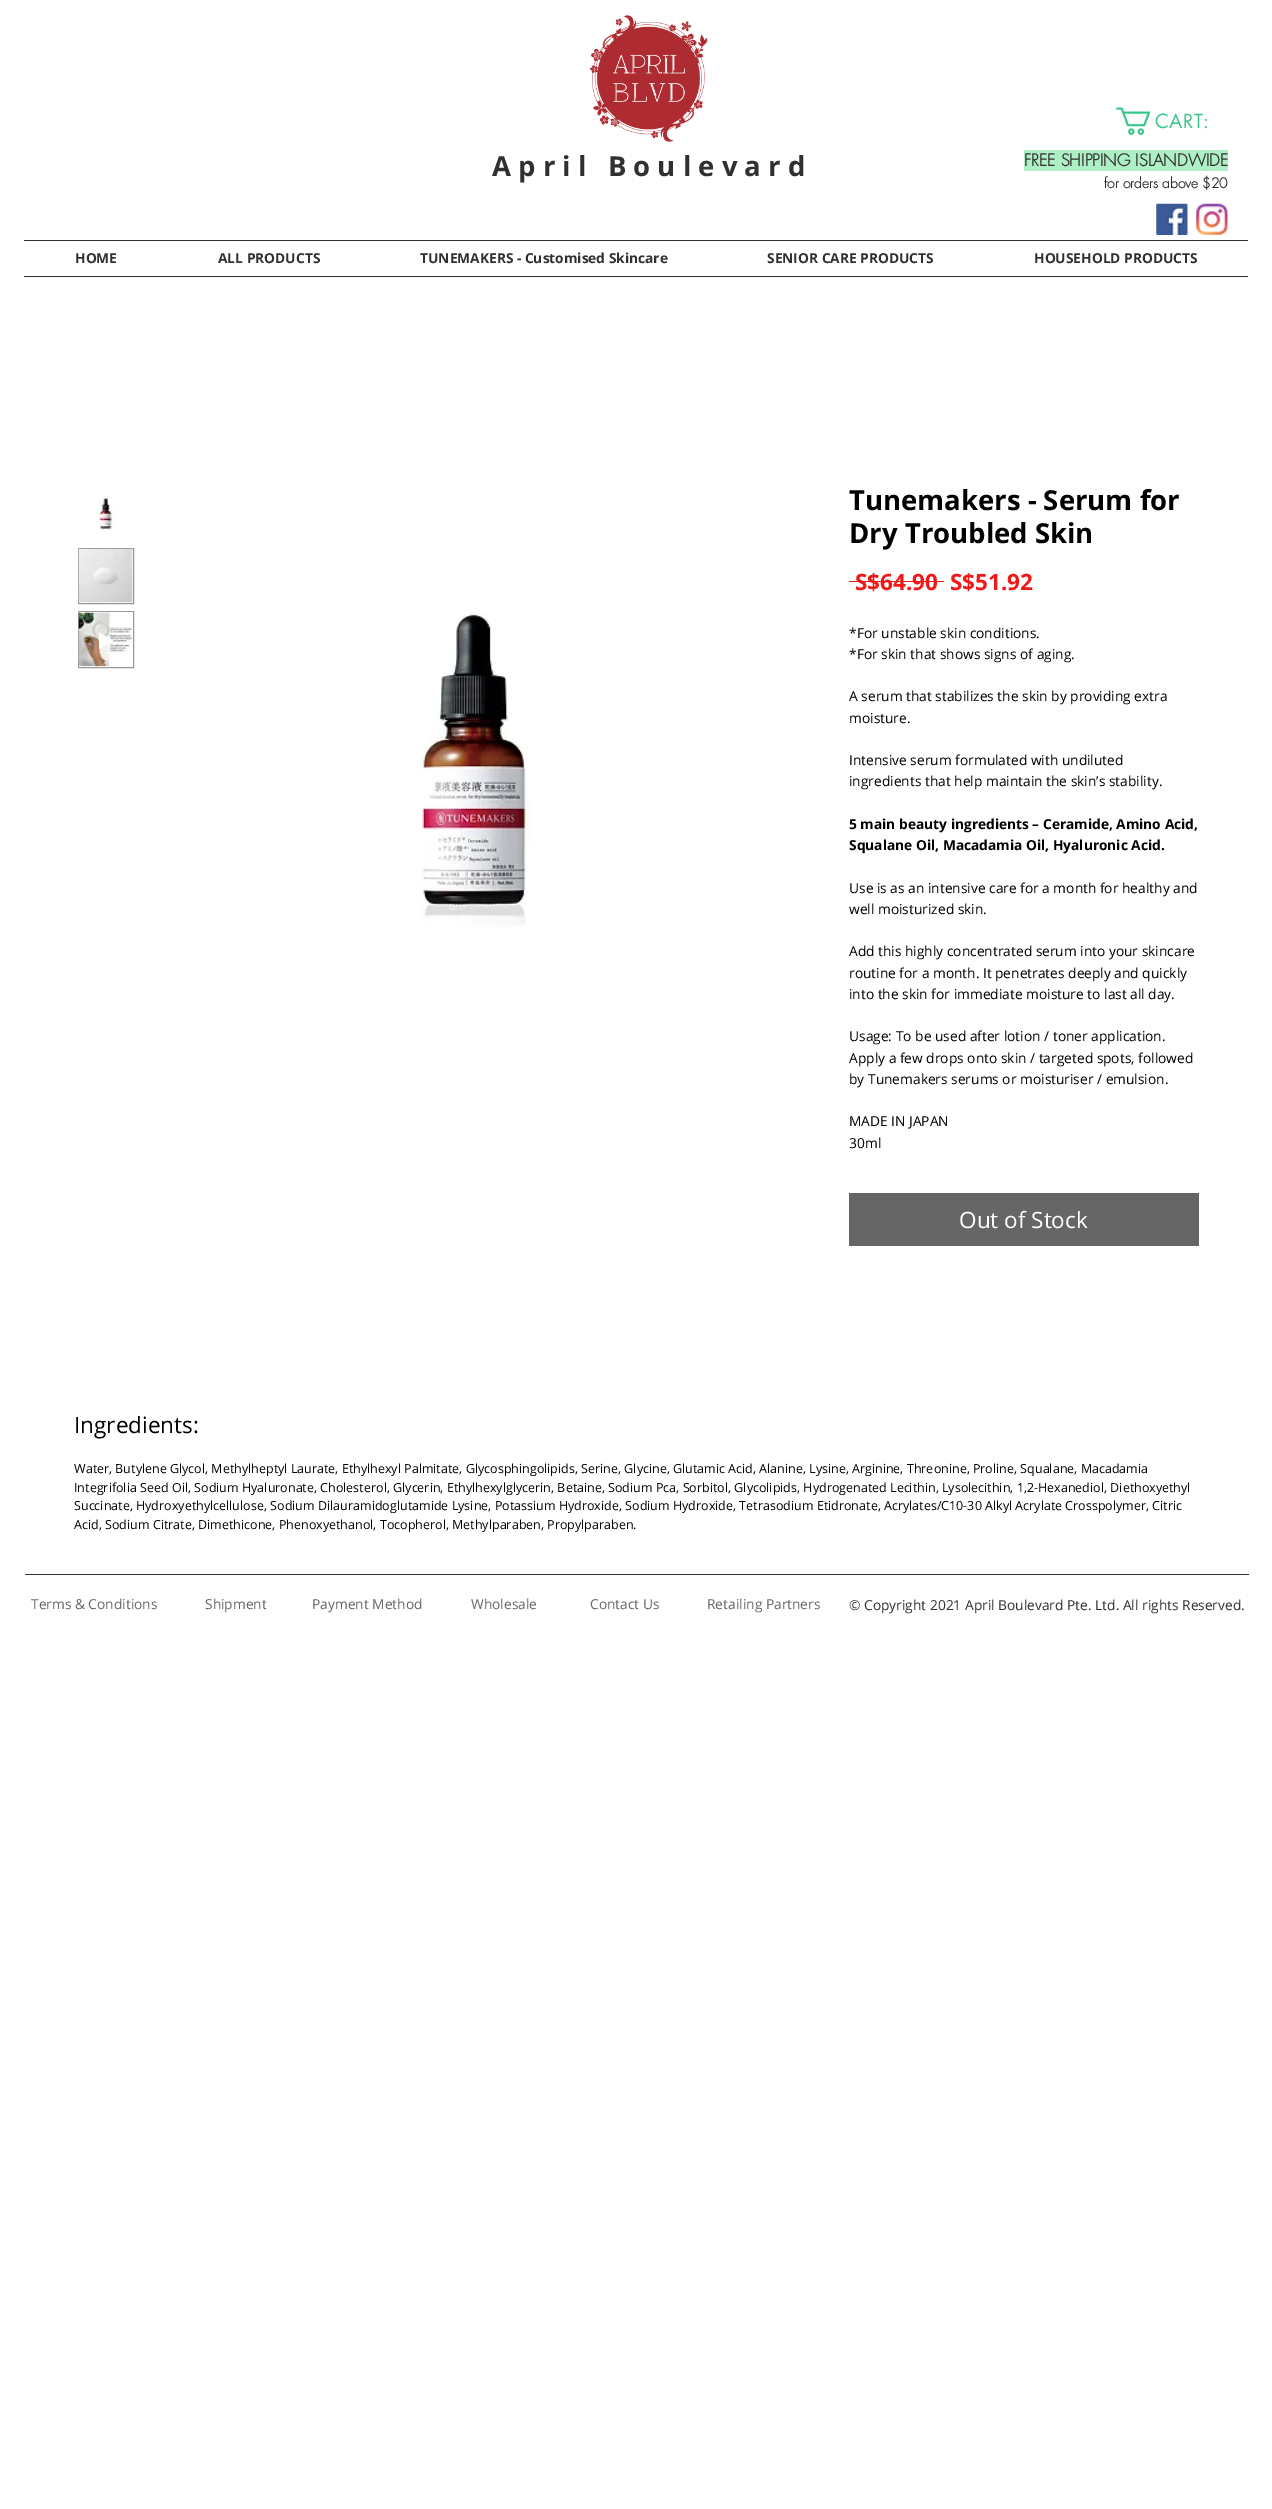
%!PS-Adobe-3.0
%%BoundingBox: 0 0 1272 2509
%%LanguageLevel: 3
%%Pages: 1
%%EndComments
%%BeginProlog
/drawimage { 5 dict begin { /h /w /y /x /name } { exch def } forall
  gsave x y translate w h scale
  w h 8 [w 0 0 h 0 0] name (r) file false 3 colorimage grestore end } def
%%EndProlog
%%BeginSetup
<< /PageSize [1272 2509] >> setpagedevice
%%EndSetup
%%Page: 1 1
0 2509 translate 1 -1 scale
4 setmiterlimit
1 setgray
0 0 1272 2509 rectfill
(images/1.raw) 590 15 118 127 drawimage
(images/2.raw) 1116 107 35 28 drawimage
0.682 0.937 0.773 setrgbcolor
1024 150 204 21 rectfill
(images/3.raw) 1156 203 32 32 drawimage
(images/4.raw) 1196 203 32 32 drawimage
0.188 setgray
24 240 1224 1 rectfill
24 276 1224 1 rectfill
(images/5.raw) 96 495 23 35 drawimage
0.6 setgray
78.5 548.5 55 55 rectstroke
(images/6.raw) 78 548 55 55 drawimage
78.5 611.5 55 56 rectstroke
(images/7.raw) 78 612 55 55 drawimage
1 setgray
newpath 99 632.5 moveto 99 649 lineto 113.5 640.5 lineto closepath fill
(images/8.raw) 421 614 110 313 drawimage
0.949 0.094 0.094 setrgbcolor
849 581 95 1 rectfill
0.4 setgray
849 1193 350 53 rectfill
0.188 setgray
25 1574 1224 1 rectfill
/futura-Regular [19 0 0 -19 0 0] selectfont
0.22 0.776 0.545 setrgbcolor
1155 128 moveto 0.5 0 (CART:) ashow
/OpenSans-Bold [27.5 0 0 -27.5 0 0] selectfont
0.188 setgray
492 176 moveto (A p r i l   B o u l e v a r d) show
/futura-Bold [16.25 0 0 -16.25 0 0] selectfont
1024 166 moveto (FREE SHIPPING ISLANDWIDE) show
/futura-Bold [13.75 0 0 -13.75 0 0] selectfont
1104 188 moveto (for orders above $20) show
/OpenSans-Bold [13.75 0 0 -13.75 0 0] selectfont
75 263 moveto (HOME) show
218 263 moveto (ALL PRODUCTS) show
420 263 moveto (TUNEMAKERS - Customised Skincare) show
767 263 moveto (SENIOR CARE PRODUCTS) show
1034 263 moveto (HOUSEHOLD PRODUCTS) show
/OpenSans-Bold [27.5 0 0 -27.5 0 0] selectfont
0 setgray
849 510 moveto (Tunemakers - Serum for) show
849 543 moveto (Dry Troubled Skin) show
/OpenSans-Bold [22.5 0 0 -22.5 0 0] selectfont
0.949 0.094 0.094 setrgbcolor
855 590 moveto (S$64.90) show
950 590 moveto (S$51.92) show
/OpenSans-Regular [13.75 0 0 -13.75 0 0] selectfont
0 setgray
849 638 moveto (*For unstable skin conditions.) show
849 659 moveto (*For skin that shows signs of aging.) show
849 701 moveto (A serum that stabilizes the skin by providing extra) show
849 723 moveto (moisture.) show
849 765 moveto (Intensive serum formulated with undiluted) show
849 786 moveto (ingredients that help maintain the skin’s stability.) show
/OpenSans-Bold [13.75 0 0 -13.75 0 0] selectfont
849 829 moveto (5 main beauty ingredients – Ceramide, Amino Acid,) show
849 850 moveto (Squalane Oil, Macadamia Oil, Hyaluronic Acid.) show
/OpenSans-Regular [13.75 0 0 -13.75 0 0] selectfont
849 893 moveto (Use is as an intensive care for a month for healthy and) show
849 914 moveto (well moisturized skin.) show
849 956 moveto (Add this highly concentrated serum into your skincare) show
849 978 moveto (routine for a month. It penetrates deeply and quickly) show
849 999 moveto (into the skin for immediate moisture to last all day.) show
849 1041 moveto (Usage: To be used after lotion / toner application.) show
849 1063 moveto (Apply a few drops onto skin / targeted spots, followed) show
849 1084 moveto (by Tunemakers serums or moisturiser / emulsion.) show
849 1126 moveto (MADE IN JAPAN) show
849 1148 moveto (30ml) show
/OpenSans-Regular [22.5 0 0 -22.5 0 0] selectfont
1 setgray
959 1228 moveto (Out of Stock) show
0 setgray
74 1433 moveto (Ingredients:) show
/OpenSans-Regular [12.5 0 0 -12.5 0 0] selectfont
74 1473 moveto (Water, Butylene Glycol, Methylheptyl Laurate, Ethylhexyl Palmitate, Glycosphingolipids, Serine, Glycine, Glutamic Acid, Alanine, Lysine, Arginine, Threonine, Proline, Squalane, Macadamia) show
74 1492 moveto (Integrifolia Seed Oil, Sodium Hyaluronate, Cholesterol, Glycerin, Ethylhexylglycerin, Betaine, Sodium Pca, Sorbitol, Glycolipids, Hydrogenated Lecithin, Lysolecithin, 1,2-Hexanediol, Diethoxyethyl) show
74 1510 moveto (Succinate, Hydroxyethylcellulose, Sodium Dilauramidoglutamide Lysine, Potassium Hydroxide, Sodium Hydroxide, Tetrasodium Etidronate, Acrylates/C10-30 Alkyl Acrylate Crosspolymer, Citric) show
74 1529 moveto (Acid, Sodium Citrate, Dimethicone, Phenoxyethanol, Tocopherol, Methylparaben, Propylparaben.) show
/OpenSans-Regular [13.75 0 0 -13.75 0 0] selectfont
0.4 setgray
31 1609 moveto (Terms & Conditions) show
205 1609 moveto (Shipment) show
312 1609 moveto (Payment Method) show
471 1609 moveto (Wholesale) show
590 1609 moveto (Contact Us) show
707 1609 moveto (Retailing Partners) show
0.188 setgray
849 1610 moveto (© Copyright 2021 April Boulevard Pte. Ltd. All rights Reserved.) show
showpage
%%EOF
